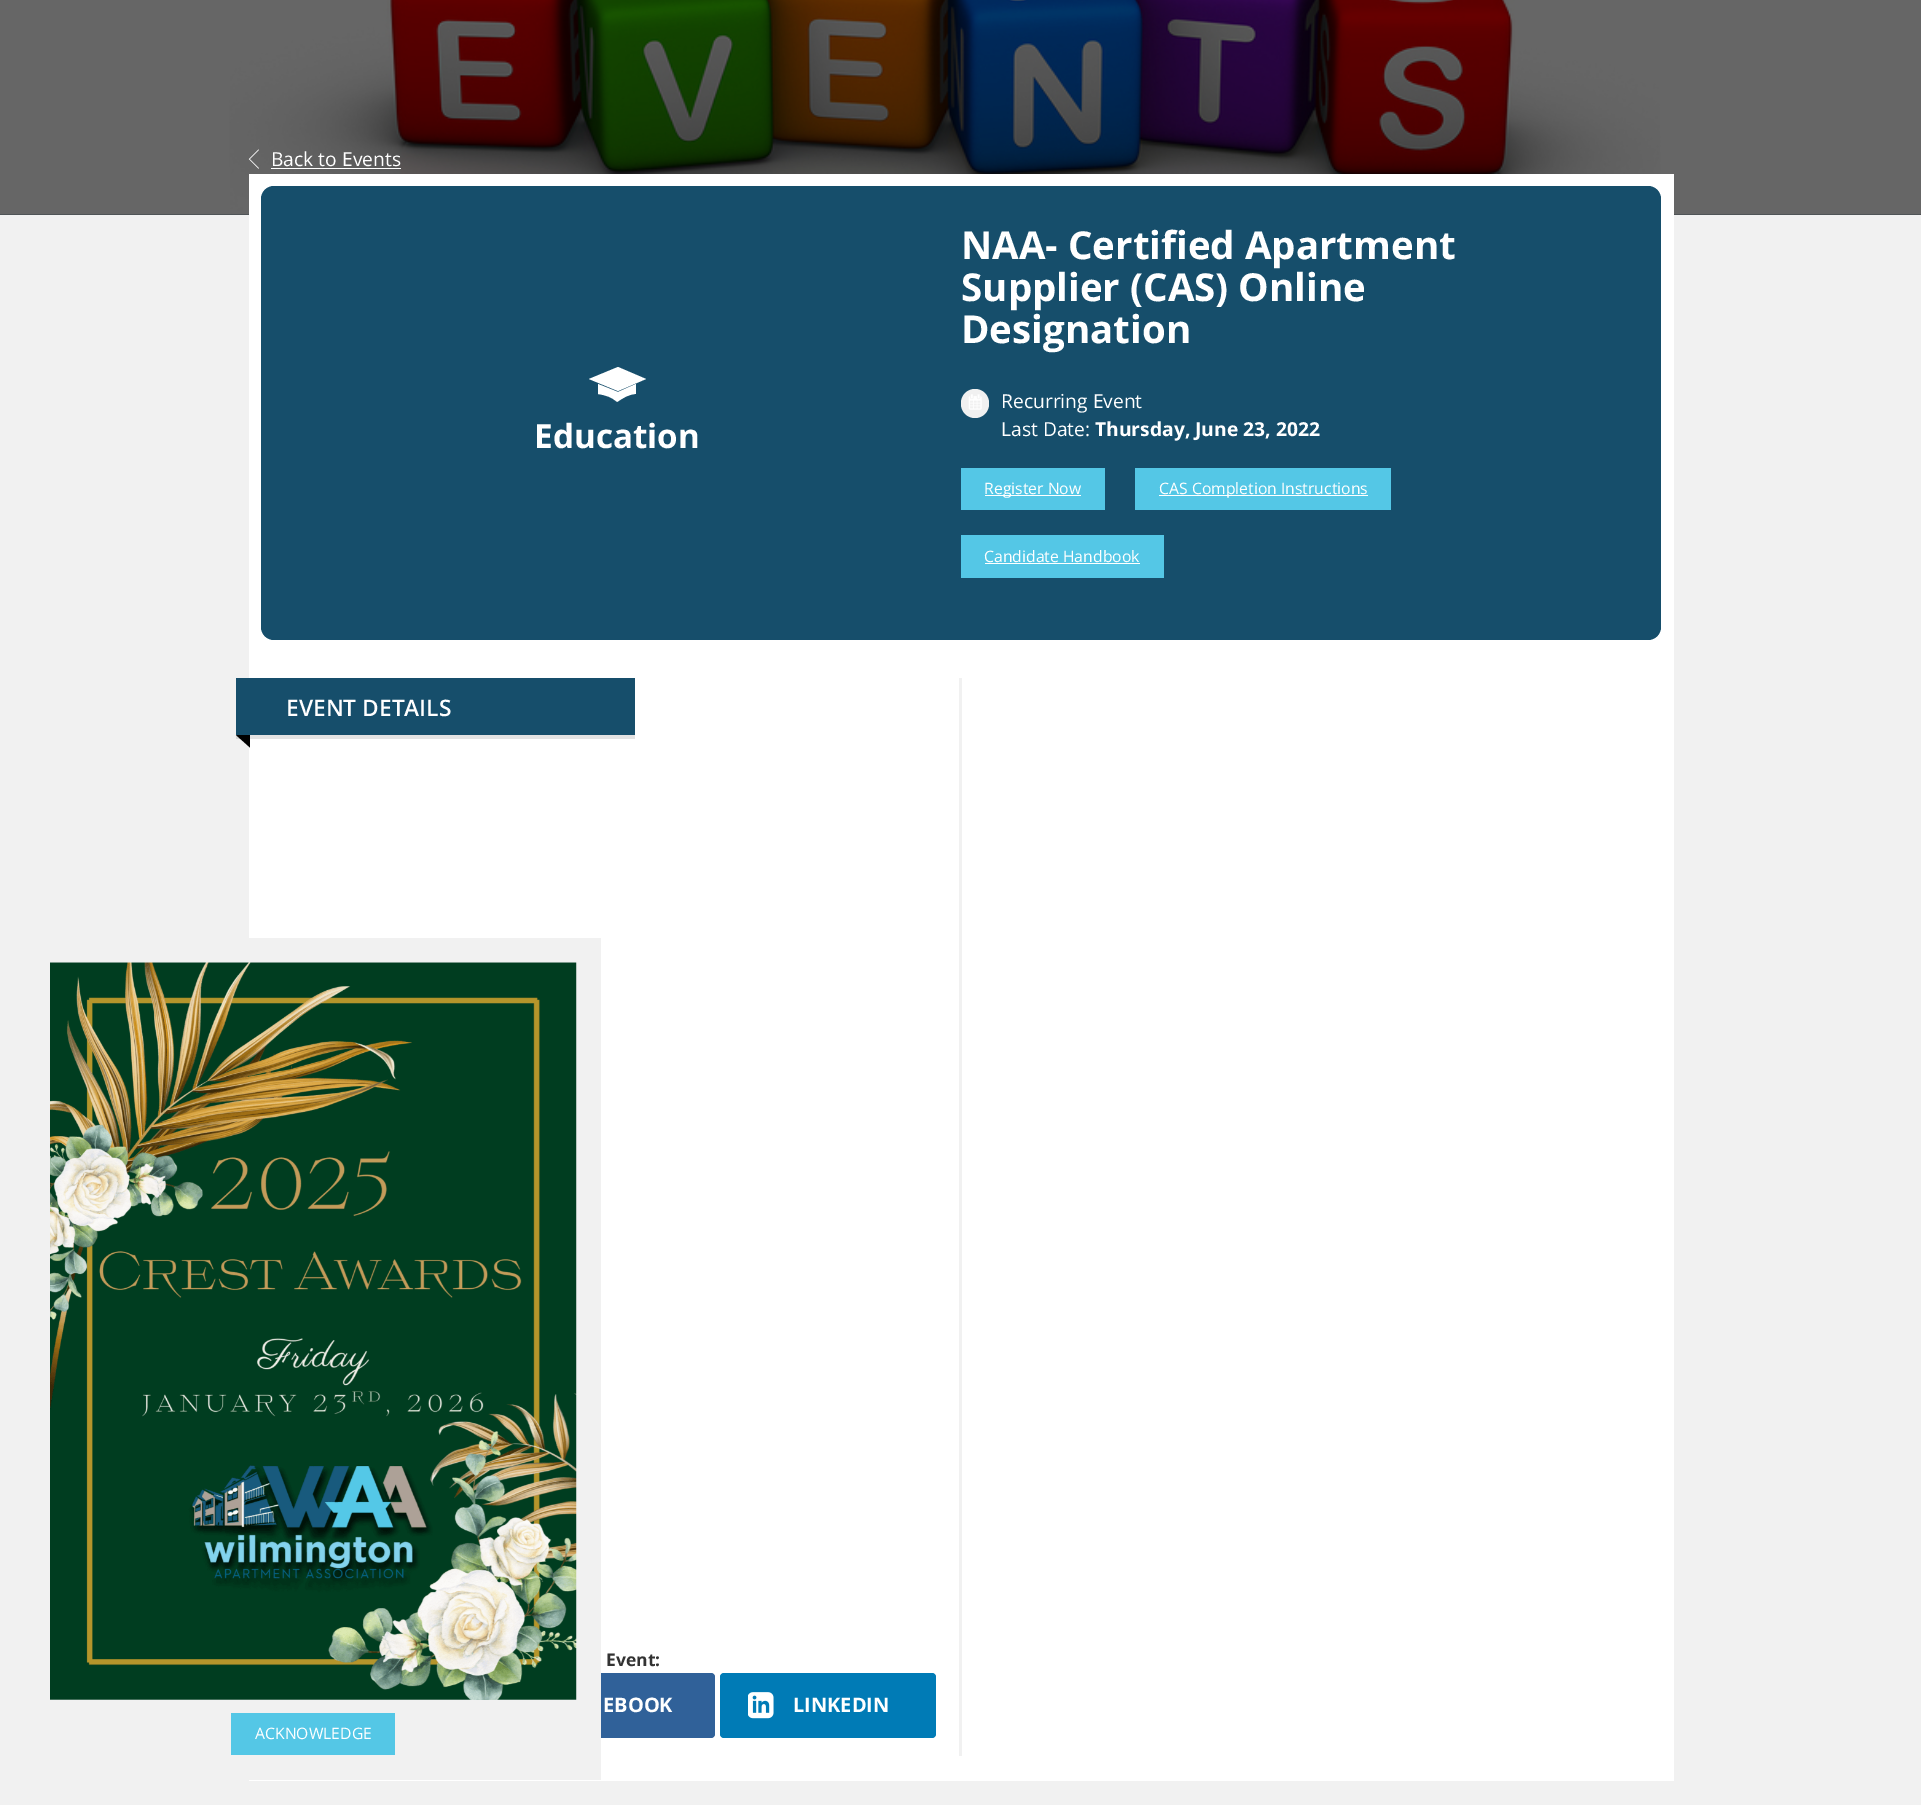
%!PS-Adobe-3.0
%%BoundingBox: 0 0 1921 1805
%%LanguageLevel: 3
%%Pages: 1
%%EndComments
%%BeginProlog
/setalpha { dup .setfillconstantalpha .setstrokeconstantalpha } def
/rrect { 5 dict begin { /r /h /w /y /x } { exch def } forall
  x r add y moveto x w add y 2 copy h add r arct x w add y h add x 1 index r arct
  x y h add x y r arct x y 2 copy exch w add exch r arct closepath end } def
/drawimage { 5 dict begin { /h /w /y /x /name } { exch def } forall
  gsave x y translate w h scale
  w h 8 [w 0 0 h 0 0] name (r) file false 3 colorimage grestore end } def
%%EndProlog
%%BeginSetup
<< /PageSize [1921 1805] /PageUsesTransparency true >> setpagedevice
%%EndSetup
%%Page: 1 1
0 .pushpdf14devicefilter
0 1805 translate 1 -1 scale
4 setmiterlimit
0.945 setgray
0 0 1921 1805 rectfill
(images/1.raw) 0 0 1921 215 drawimage
(images/2.raw) 248 149 11 20 drawimage
1 setgray
271 168 130 1 rectfill
249 174 1425 1607 rectfill
0.086 0.306 0.42 setrgbcolor
261 186 1400 454 13 rrect fill
1 setgray
newpath 618 367 moveto 589 379 lineto 618 391 lineto 646 379 lineto closepath 618 392 moveto 598 384 lineto 598 394 lineto 605 395 612 397 617 402 curveto 623 398 629 394 636 394 curveto 636 384 lineto closepath fill
0.945 setgray
961 389 28 29 14 rrect fill
(images/3.raw) 968 394 14 16 drawimage
0.329 0.78 0.902 setrgbcolor
961 468 144 42 rectfill
1 setgray
985 495 96 1 rectfill
0.329 0.78 0.902 setrgbcolor
1135 468 256 42 rectfill
1 setgray
1159 495 209 1 rectfill
0.329 0.78 0.902 setrgbcolor
961 535 203 43 rectfill
1 setgray
985 563 155 1 rectfill
0.945 setgray
959 678 3 1078 rectfill
0.11 setalpha
0 setgray
newpath 236 681 moveto 236 739 lineto 635 739 lineto 635 735 lineto 236 735 lineto closepath fill
1 setalpha
0.086 0.306 0.42 setrgbcolor
236 678 399 57 rectfill
0 setgray
newpath 236 735 moveto 250 735 lineto 250 747.5 lineto closepath fill
0.188 0.38 0.6 setrgbcolor
498 1673 217 65 4 rrect fill
0 0.482 0.714 setrgbcolor
720 1673 216 65 4 rrect fill
(images/4.raw) 748 1692 26 27 drawimage
0.945 setgray
249 938 352 842 rectfill
(images/5.raw) 50 962 527 738 drawimage
0.329 0.78 0.902 setrgbcolor
231 1713 164 42 rectfill
/OpenSans-Regular [19.25 0 0 -19.25 0 0] selectfont
1 setgray
271 166 moveto (Back to Events) show
/OpenSans-Bold [33.25 0 0 -33.25 0 0] selectfont
534 448 moveto (Education) show
/OpenSans-Bold [38.5 0 0 -38.5 0 0] selectfont
961 259 moveto (NAA- Certified Apartment) show
961 301 moveto (Supplier \(CAS\) Online) show
961 343 moveto (Designation) show
/OpenSans-Regular [19.25 0 0 -19.25 0 0] selectfont
1001 408 moveto (Recurring Event) show
1001 436 moveto (Last Date:) show
/OpenSans-Bold [19.25 0 0 -19.25 0 0] selectfont
1095 436 moveto (Thursday, June 23, 2022) show
/OpenSans-Regular [15.75 0 0 -15.75 0 0] selectfont
984 494 moveto (Register Now) show
1159 494 moveto (CAS Completion Instructions) show
984 562 moveto (Candidate Handbook) show
/OpenSans-SemiBold [22.75 0 0 -22.75 0 0] selectfont
286 716 moveto (EVENT DETAILS) show
/OpenSans-Bold [17.5 0 0 -17.5 0 0] selectfont
0.2 setgray
606 1666 moveto (Event:) show
/OpenSans-Bold [20 0 0 -20 0 0] selectfont
1 setgray
603 1712 moveto (EBOOK) show
793 1712 moveto (LINKEDIN) show
/OpenSans-Regular [15.75 0 0 -15.75 0 0] selectfont
255 1739 moveto (ACKNOWLEDGE) show
.poppdf14devicefilter showpage
%%EOF
